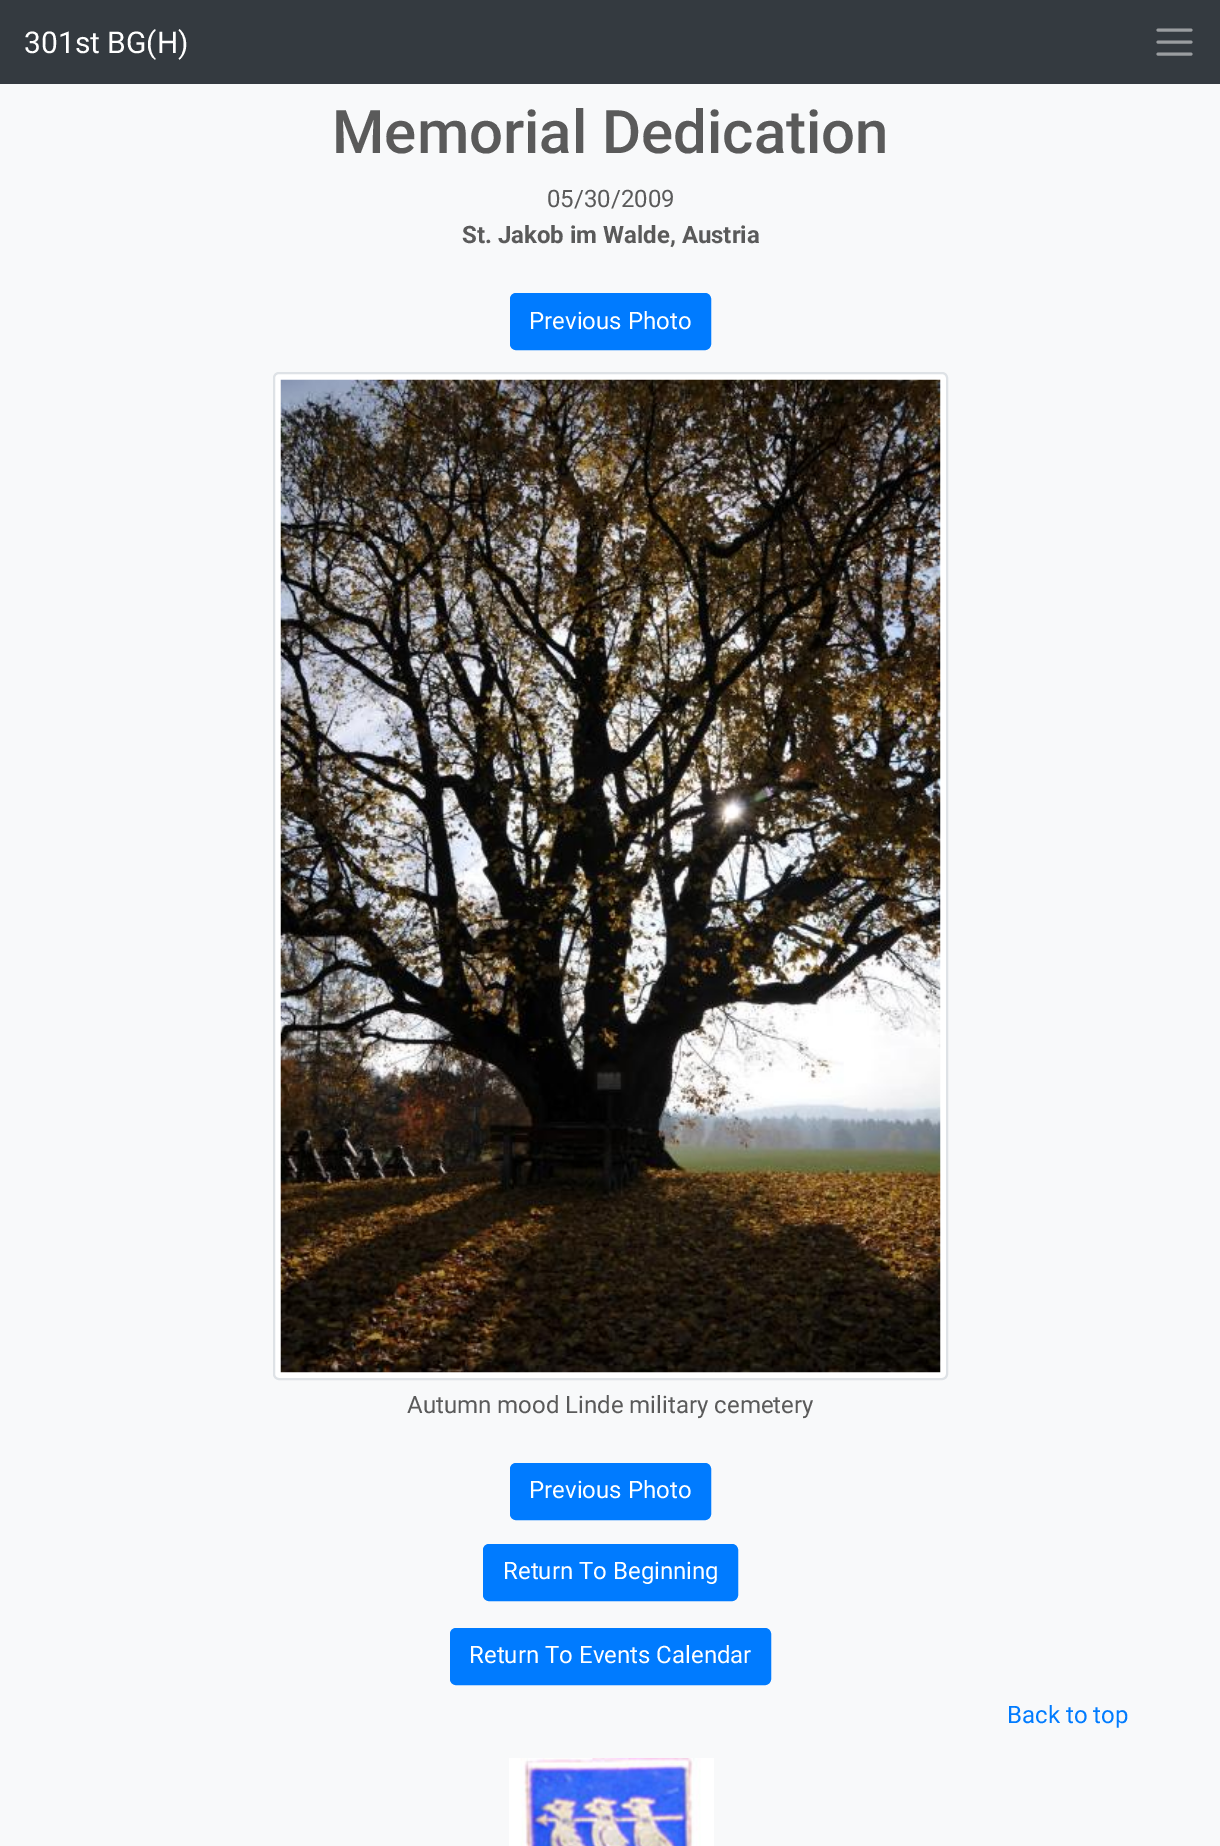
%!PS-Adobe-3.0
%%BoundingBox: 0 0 1220 1846
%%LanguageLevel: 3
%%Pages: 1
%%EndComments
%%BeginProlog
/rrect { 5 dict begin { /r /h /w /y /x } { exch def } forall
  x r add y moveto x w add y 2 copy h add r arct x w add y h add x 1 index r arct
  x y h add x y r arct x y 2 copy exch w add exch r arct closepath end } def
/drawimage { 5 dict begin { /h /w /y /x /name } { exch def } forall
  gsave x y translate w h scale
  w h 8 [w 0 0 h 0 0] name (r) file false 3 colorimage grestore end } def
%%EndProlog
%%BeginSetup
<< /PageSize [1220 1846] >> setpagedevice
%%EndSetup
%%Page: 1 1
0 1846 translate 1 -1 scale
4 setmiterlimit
0.973 0.976 0.98 setrgbcolor
0 0 1220 1846 rectfill
0.204 0.227 0.251 setrgbcolor
0 0 1220 84 rectfill
0.604 0.616 0.627 setrgbcolor
3 setlinewidth
1 setlinecap
newpath 1158 30 moveto 1191 30 lineto 1158 42 moveto 1191 42 lineto 1158 54 moveto 1191 54 lineto stroke
0 0.482 1 setrgbcolor
511 294 199 55 5 rrect gsave fill grestore
2 setlinewidth
0 setlinecap
stroke
1 setgray
274 373 673 1006 5 rrect gsave fill grestore
0.871 0.886 0.902 setrgbcolor
stroke
(images/1.raw) 280 379 661 994 drawimage
0 0.482 1 setrgbcolor
511 1464 199 55 5 rrect gsave fill grestore
stroke
484 1545 253 55 5 rrect gsave fill grestore
stroke
451 1629 319 55 5 rrect gsave fill grestore
stroke
(images/2.raw) 509 1758 205 88 drawimage
/Roboto-Regular [30 0 0 -30 0 0] selectfont
1 setgray
24 53 moveto (301st BG\(H\)) show
/Roboto-Medium [60 0 0 -60 0 0] selectfont
0.353 setgray
332 153 moveto (Memorial Dedication) show
/Roboto-Regular [24 0 0 -24 0 0] selectfont
547 207 moveto (05/30/2009) show
/Roboto-Bold [24 0 0 -24 0 0] selectfont
462 243 moveto (St. Jakob im Walde, Austria) show
/Roboto-Regular [24 0 0 -24 0 0] selectfont
1 setgray
529 329 moveto (Previous Photo) show
0.353 setgray
407 1413 moveto (Autumn mood Linde military cemetery) show
1 setgray
529 1498 moveto (Previous Photo) show
503 1579 moveto (Return To Beginning) show
469 1663 moveto (Return To Events Calendar) show
0 0.482 1 setrgbcolor
1007 1723 moveto (Back to top) show
showpage
%%EOF
